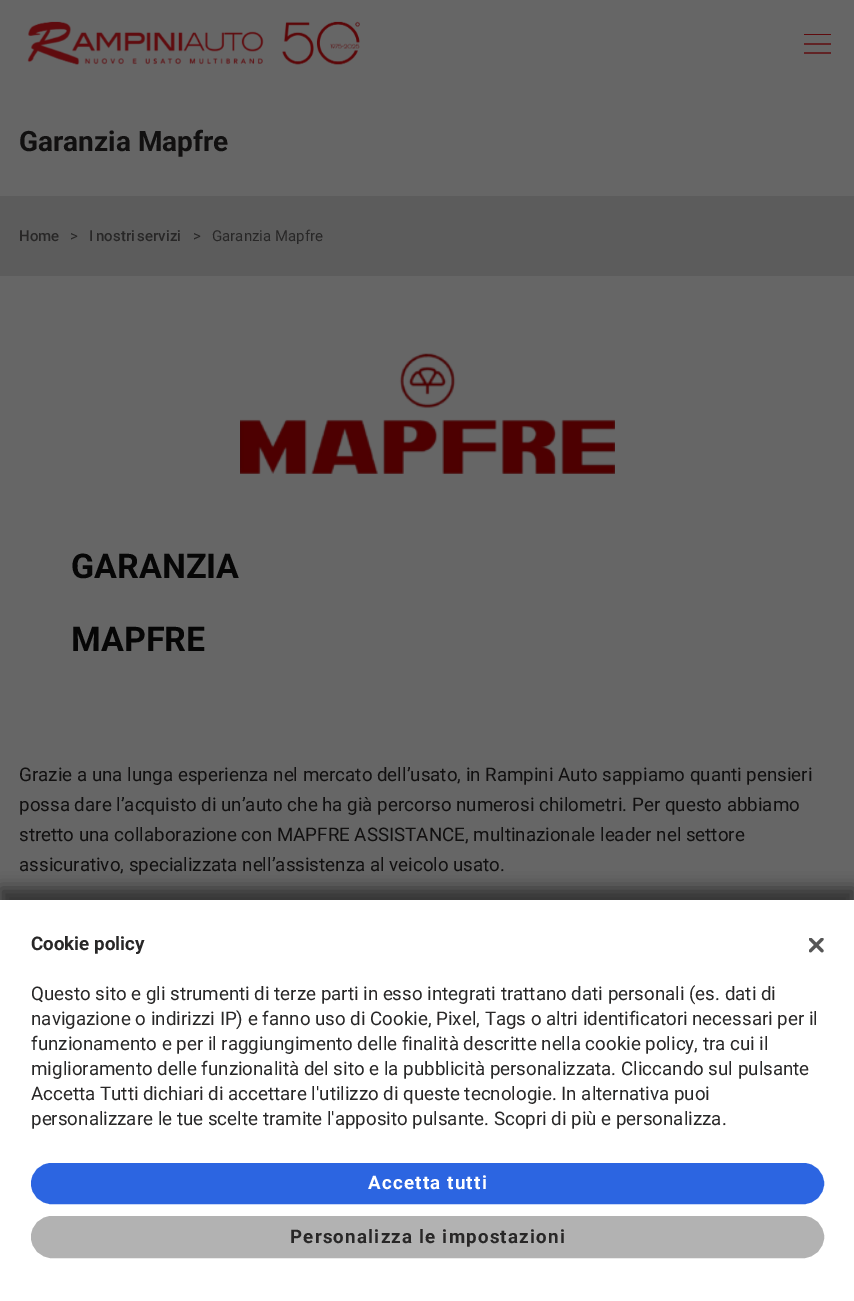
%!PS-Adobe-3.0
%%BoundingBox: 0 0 854 1301
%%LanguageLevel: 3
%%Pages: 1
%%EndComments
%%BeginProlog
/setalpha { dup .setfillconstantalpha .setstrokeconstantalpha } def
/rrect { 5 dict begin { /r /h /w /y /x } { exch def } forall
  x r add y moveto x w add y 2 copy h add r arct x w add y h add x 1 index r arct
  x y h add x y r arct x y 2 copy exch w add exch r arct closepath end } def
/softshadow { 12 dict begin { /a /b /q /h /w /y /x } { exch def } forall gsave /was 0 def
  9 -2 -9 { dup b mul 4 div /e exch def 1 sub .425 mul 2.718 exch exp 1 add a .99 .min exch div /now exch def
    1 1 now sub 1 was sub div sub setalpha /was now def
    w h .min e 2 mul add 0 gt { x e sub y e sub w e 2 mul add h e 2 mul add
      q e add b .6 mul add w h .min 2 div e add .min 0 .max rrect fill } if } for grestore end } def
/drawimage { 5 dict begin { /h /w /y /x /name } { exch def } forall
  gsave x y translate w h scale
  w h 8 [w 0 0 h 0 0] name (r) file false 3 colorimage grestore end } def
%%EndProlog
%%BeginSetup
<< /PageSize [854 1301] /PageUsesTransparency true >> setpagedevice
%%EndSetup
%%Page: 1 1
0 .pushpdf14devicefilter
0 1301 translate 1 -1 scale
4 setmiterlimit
0.4 setgray
0 0 854 1301 rectfill
(images/1.raw) 27 21 333 44 drawimage
0.373 0.043 0.055 setrgbcolor
804 34 27 1 rectfill
1.3 setlinewidth
newpath 804 44 moveto 831 44 lineto 804 53 moveto 831 53 lineto stroke
0.361 setgray
0 196 854 80 rectfill
(images/2.raw) 240 353 375 121 drawimage
0 setgray
0 888 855 401 0 7.5 0.5 softshadow
1 setgray
0 900 854 401 rectfill
(images/3.raw) 809 938 15 15 drawimage
0.173 0.396 0.882 setrgbcolor
32.5 1164.5 790 38 19 rrect gsave fill grestore
3 setlinewidth
stroke
0.698 setgray
32.5 1217.5 790 39 19.5 rrect gsave fill grestore
stroke
/Roboto-Bold [28 0 0 -28 0 0] selectfont
0.067 0.063 0.063 setrgbcolor
19 151 moveto (Garanzia Mapfre) show
/Roboto-Medium [15 0 0 -15 0 0] selectfont
0.157 0.153 0.153 setrgbcolor
19 241 moveto (Home) show
/Roboto-Regular [15 0 0 -15 0 0] selectfont
70 241 moveto (>) show
/Roboto-Medium [15 0 0 -15 0 0] selectfont
89 241 moveto -1 0 32 (I nostri servizi) widthshow
/Roboto-Regular [15 0 0 -15 0 0] selectfont
193 241 moveto (>) show
212 241 moveto (Garanzia Mapfre) show
/Roboto-Bold [34 0 0 -34 0 0] selectfont
0.024 setgray
71 578 moveto (GARANZIA) show
71 651 moveto (MAPFRE) show
/Roboto-Regular [18.75 0 0 -18.75 0 0] selectfont
0.067 0.063 0.063 setrgbcolor
19 781 moveto (Grazie a una lunga esperienza nel mercato dell’usato, in Rampini Auto sappiamo quanti pensieri) show
19 811 moveto (possa dare l’acquisto di un’auto che ha già percorso numerosi chilometri. Per questo abbiamo) show
19 841 moveto (stretto una collaborazione con MAPFRE ASSISTANCE, multinazionale leader nel settore) show
19 871 moveto (assicurativo, specializzata nell’assistenza al veicolo usato.) show
/Roboto-Bold [18.75 0 0 -18.75 0 0] selectfont
0.157 0.153 0.153 setrgbcolor
31 950 moveto (Cookie policy) show
/Roboto-Regular [18.75 0 0 -18.75 0 0] selectfont
31 1000 moveto (Questo sito e gli strumenti di terze parti in esso integrati trattano dati personali \(es. dati di) show
31 1025 moveto (navigazione o indirizzi IP\) e fanno uso di Cookie, Pixel, Tags o altri identificatori necessari per il) show
31 1050 moveto (funzionamento e per il raggiungimento delle finalità descritte nella cookie policy, tra cui il) show
31 1075 moveto (miglioramento delle funzionalità del sito e la pubblicità personalizzata. Cliccando sul pulsante) show
31 1100 moveto (Accetta Tutti dichiari di accettare l'utilizzo di queste tecnologie. In alternativa puoi) show
31 1125 moveto (personalizzare le tue scelte tramite l'apposito pulsante. Scopri di più e personalizza.) show
/Roboto-Bold [18.75 0 0 -18.75 0 0] selectfont
1 setgray
368 1189 moveto 1.2 0 (Accetta tutti) ashow
0.157 0.153 0.153 setrgbcolor
290 1243 moveto 1.2 0 (Personalizza le impostazioni) ashow
.poppdf14devicefilter showpage
%%EOF
